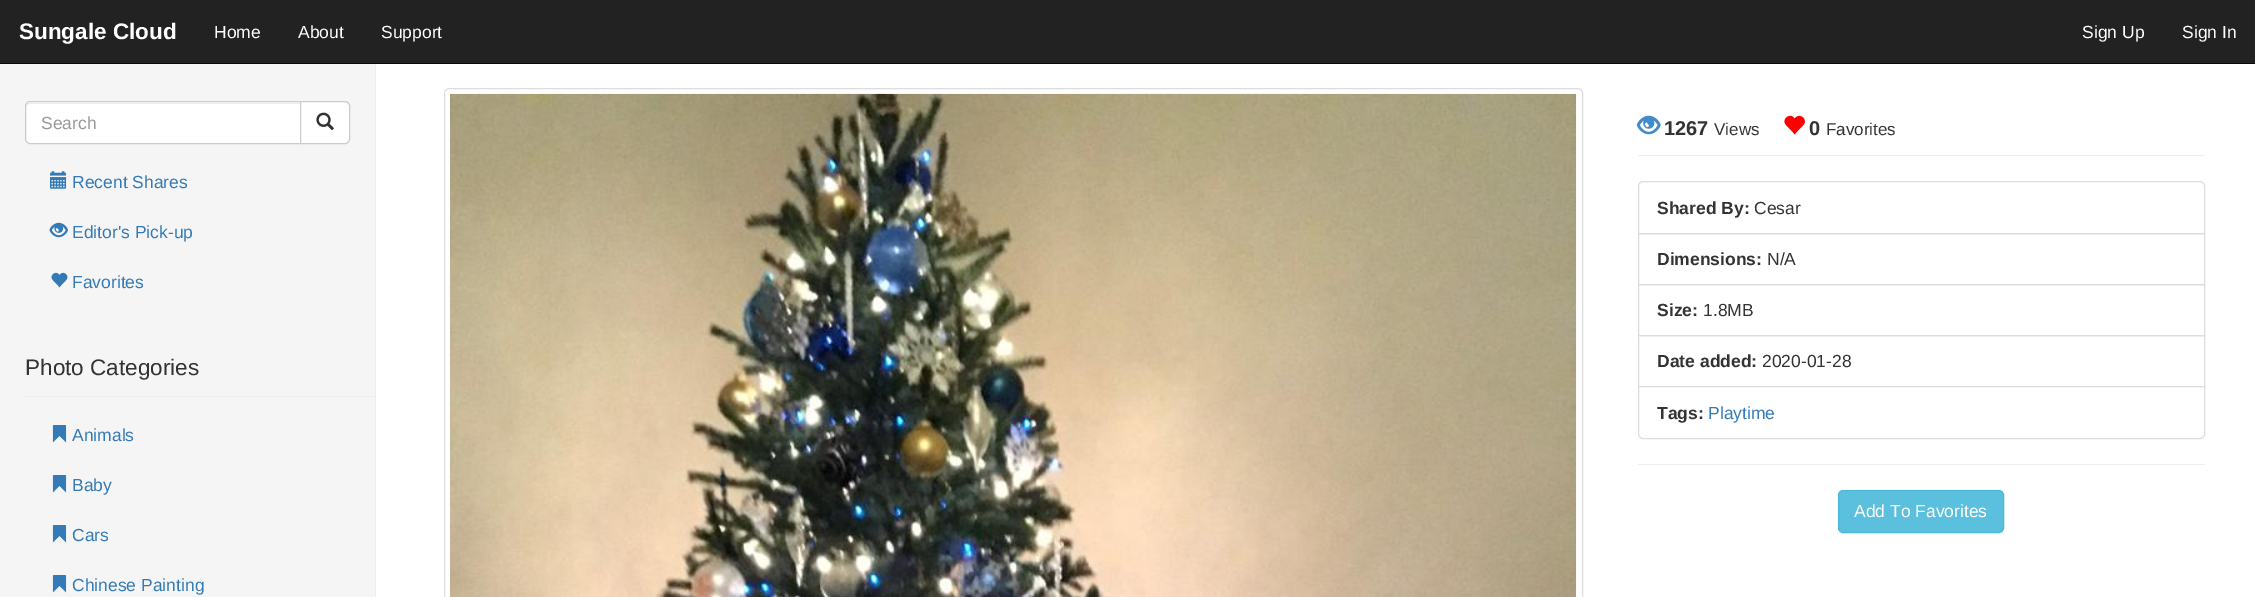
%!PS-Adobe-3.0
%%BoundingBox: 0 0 2255 597
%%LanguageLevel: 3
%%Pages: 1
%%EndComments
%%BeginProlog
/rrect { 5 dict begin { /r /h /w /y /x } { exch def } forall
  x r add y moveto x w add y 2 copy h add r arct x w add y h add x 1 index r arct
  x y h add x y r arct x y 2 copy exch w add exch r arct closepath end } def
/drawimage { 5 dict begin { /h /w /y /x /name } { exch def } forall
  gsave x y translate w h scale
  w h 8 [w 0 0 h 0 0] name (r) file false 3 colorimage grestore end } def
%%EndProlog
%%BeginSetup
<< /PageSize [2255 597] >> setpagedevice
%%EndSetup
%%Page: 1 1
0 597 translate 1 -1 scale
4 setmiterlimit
1 setgray
0 0 2255 597 rectfill
0.133 setgray
0 0 2255 63 rectfill
0.031 setgray
0 63 2255 1 rectfill
0.961 setgray
0 64 375 533 rectfill
0.933 setgray
375 64 1 533 rectfill
1 setgray
newpath 30 101 moveto 301 101 lineto 301 144 lineto 30 144 lineto 27 144 25 142 25 139 curveto 25 106 lineto 25 103 27 101 30 101 curveto closepath fill
0.925 setgray
newpath 30 104 moveto 300 104 lineto 300 103 lineto 30 103 lineto 27 103 26 105 26 108 curveto 26 105 28 104 30 104 curveto closepath fill
0.8 setgray
newpath 30 101.5 moveto 300.5 101.5 lineto 300.5 143.5 lineto 30 143.5 lineto 27.5 143.5 25.5 141.5 25.5 139 curveto 25.5 106 lineto 25.5 103.5 27.5 101.5 30 101.5 curveto closepath stroke
1 setgray
newpath 300.5 101.5 moveto 345 101.5 lineto 347.5 101.5 349.5 103.5 349.5 106 curveto 349.5 139 lineto 349.5 141.5 347.5 143.5 345 143.5 curveto 300.5 143.5 lineto closepath gsave fill grestore
0.8 setgray
stroke
(images/1.raw) 316 112 18 18 drawimage
(images/2.raw) 50 171 17 18 drawimage
(images/3.raw) 49 222 19 16 drawimage
(images/4.raw) 51 272 17 16 drawimage
0.933 setgray
25 396 350 1 rectfill
(images/5.raw) 52 425 15 18 drawimage
(images/5.raw) 52 475 15 18 drawimage
(images/5.raw) 52 525 15 18 drawimage
(images/5.raw) 52 575 15 18 drawimage
0.867 setgray
444.5 88.5 1138 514 4.5 rrect stroke
(images/6.raw) 450 93 1127 504 drawimage
0.933 setgray
1638 155 567 1 rectfill
(images/7.raw) 1636 115 25 20 drawimage
(images/8.raw) 1784 115 21 20 drawimage
0.867 setgray
newpath 1643 181.5 moveto 2200 181.5 lineto 2202.5 181.5 2204.5 183.5 2204.5 186 curveto 2204.5 233.5 lineto 1638.5 233.5 lineto 1638.5 186 lineto 1638.5 183.5 1640.5 181.5 1643 181.5 curveto closepath stroke
1638.5 233.5 566 51 rectstroke
1638.5 284.5 566 51 rectstroke
1638.5 335.5 566 52 rectstroke
1 setgray
newpath 1638.5 386.5 moveto 2204.5 386.5 lineto 2204.5 434 lineto 2204.5 436.5 2202.5 438.5 2200 438.5 curveto 1643 438.5 lineto 1640.5 438.5 1638.5 436.5 1638.5 434 curveto closepath gsave fill grestore
0.867 setgray
stroke
0.933 setgray
1638 464 567 1 rectfill
0.357 0.753 0.871 setrgbcolor
1838.5 490.5 165 42 4.5 rrect gsave fill grestore
0.275 0.722 0.855 setrgbcolor
stroke
/LiberationSans-Bold [22.5 0 0 -22.5 0 0] selectfont
1 setgray
19 39 moveto (Sungale Cloud) show
/LiberationSans-Regular [17.5 0 0 -17.5 0 0] selectfont
214 38 moveto (Home) show
298 38 moveto (About) show
381 38 moveto (Support) show
2082 38 moveto (Sign Up) show
2182 38 moveto (Sign In) show
0.6 setgray
41 129 moveto (Search) show
0.2 0.478 0.718 setrgbcolor
72 188 moveto (Recent Shares) show
72 238 moveto (Editor's Pick-up) show
72 288 moveto (Favorites) show
/LiberationSans-Regular [22.5 0 0 -22.5 0 0] selectfont
0.2 setgray
25 375 moveto (Photo Categories) show
/LiberationSans-Regular [17.5 0 0 -17.5 0 0] selectfont
0.2 0.478 0.718 setrgbcolor
72 441 moveto (Animals) show
72 491 moveto (Baby) show
72 541 moveto (Cars) show
72 591 moveto (Chinese Painting) show
/LiberationSans-Bold [20 0 0 -20 0 0] selectfont
0.2 setgray
1664 135 moveto (1267) show
/LiberationSans-Regular [17 0 0 -17 0 0] selectfont
1714 135 moveto (Views) show
/LiberationSans-Bold [20 0 0 -20 0 0] selectfont
1809 135 moveto (0) show
/LiberationSans-Regular [17 0 0 -17 0 0] selectfont
1826 135 moveto (Favorites) show
/LiberationSans-Bold [17.5 0 0 -17.5 0 0] selectfont
1657 214 moveto (Shared By:) show
/LiberationSans-Regular [17.5 0 0 -17.5 0 0] selectfont
1754 214 moveto (Cesar) show
/LiberationSans-Bold [17.5 0 0 -17.5 0 0] selectfont
1657 265 moveto (Dimensions:) show
/LiberationSans-Regular [17.5 0 0 -17.5 0 0] selectfont
1767 265 moveto (N/A) show
/LiberationSans-Bold [17.5 0 0 -17.5 0 0] selectfont
1657 316 moveto (Size:) show
/LiberationSans-Regular [17.5 0 0 -17.5 0 0] selectfont
1703 316 moveto (1.8MB) show
/LiberationSans-Bold [17.5 0 0 -17.5 0 0] selectfont
1657 367 moveto (Date added:) show
/LiberationSans-Regular [17.5 0 0 -17.5 0 0] selectfont
1762 367 moveto (2020-01-28) show
/LiberationSans-Bold [17.5 0 0 -17.5 0 0] selectfont
1657 419 moveto (Tags:) show
/LiberationSans-Regular [17.5 0 0 -17.5 0 0] selectfont
0.2 0.478 0.718 setrgbcolor
1708 419 moveto (Playtime) show
1 setgray
1854 517 moveto (Add To Favorites) show
showpage
%%EOF
